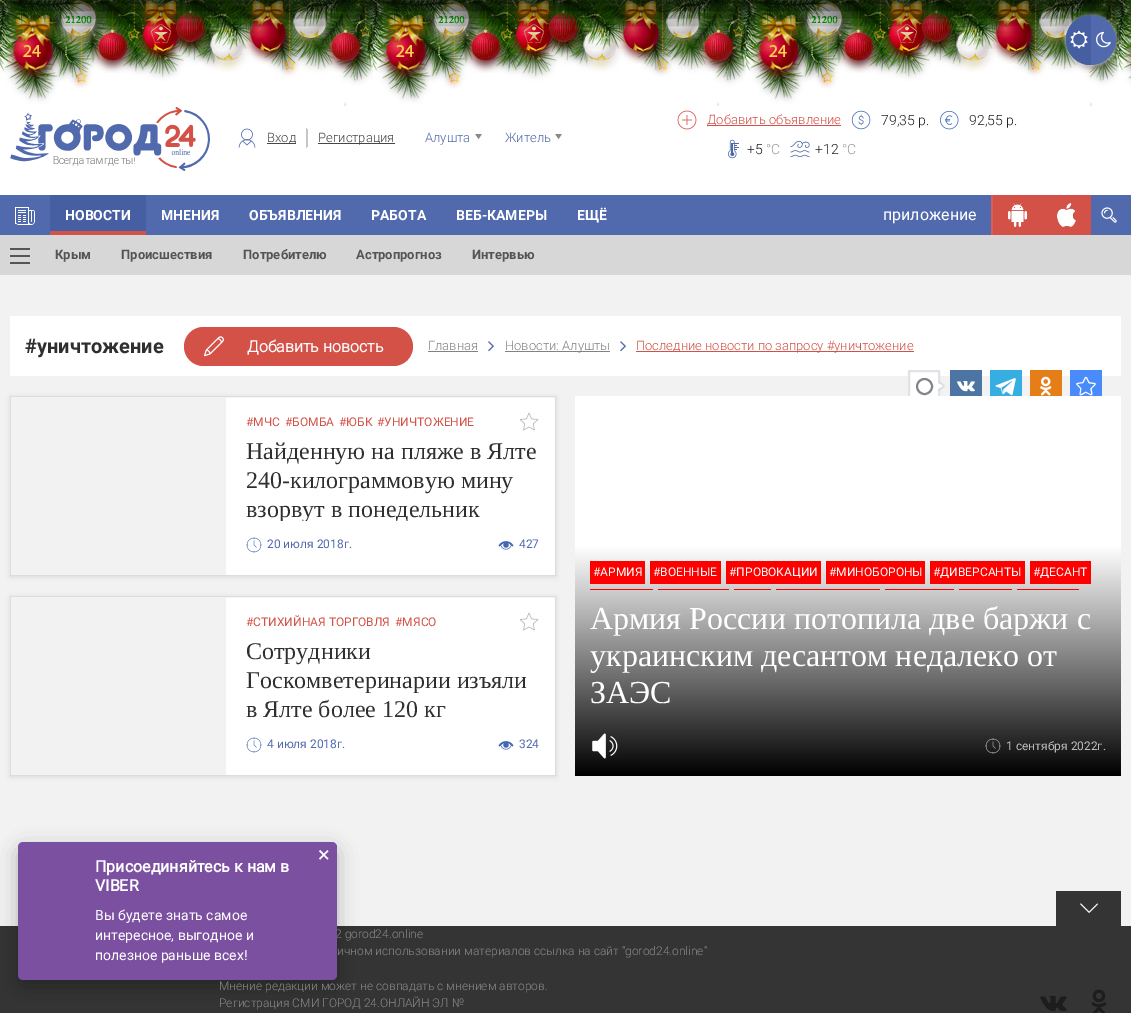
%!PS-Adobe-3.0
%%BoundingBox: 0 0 1131 1013
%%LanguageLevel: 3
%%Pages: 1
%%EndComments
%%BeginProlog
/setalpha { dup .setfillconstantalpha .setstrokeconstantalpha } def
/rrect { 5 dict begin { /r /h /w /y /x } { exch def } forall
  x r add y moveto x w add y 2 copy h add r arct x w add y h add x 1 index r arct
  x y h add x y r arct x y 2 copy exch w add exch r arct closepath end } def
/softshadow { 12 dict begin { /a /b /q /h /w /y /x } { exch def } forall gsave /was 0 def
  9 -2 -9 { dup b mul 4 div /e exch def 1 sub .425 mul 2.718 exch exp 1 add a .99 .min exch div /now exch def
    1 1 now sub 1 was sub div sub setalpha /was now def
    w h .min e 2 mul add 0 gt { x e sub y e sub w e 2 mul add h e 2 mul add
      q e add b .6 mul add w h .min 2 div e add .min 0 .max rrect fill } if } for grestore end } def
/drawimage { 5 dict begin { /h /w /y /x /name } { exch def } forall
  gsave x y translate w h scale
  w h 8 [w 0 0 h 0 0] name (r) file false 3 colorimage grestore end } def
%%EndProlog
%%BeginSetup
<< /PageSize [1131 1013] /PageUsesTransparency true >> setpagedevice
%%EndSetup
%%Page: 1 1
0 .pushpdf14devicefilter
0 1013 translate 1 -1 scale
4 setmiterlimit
0.949 setgray
0 0 1131 1013 rectfill
1 setgray
0 0 1131 195 rectfill
(images/1.raw) 0 0 1131 106 drawimage
(images/15.raw) 6 14 54 68 drawimage
(images/2.raw) 0 0 25 71 drawimage
(images/4.raw) 54 0 49 47 drawimage
(images/3.raw) 25 0 61 27 drawimage
(images/5.raw) 136 0 49 63 drawimage
(images/6.raw) 170 0 41 54 drawimage
(images/12.raw) 204 6 45 66 drawimage
(images/7.raw) 177 0 28 31 drawimage
(images/9.raw) 243 0 49 64 drawimage
(images/8.raw) 205 0 50 50 drawimage
(images/10.raw) 287 0 46 49 drawimage
(images/11.raw) 91 9 42 64 drawimage
(images/16.raw) 325 10 41 63 drawimage
(images/13.raw) 289 0 78 28 drawimage
(images/14.raw) 367 0 6 69 drawimage
(images/15.raw) 379 14 54 68 drawimage
(images/2.raw) 373 0 25 71 drawimage
(images/4.raw) 427 0 49 47 drawimage
(images/3.raw) 398 0 61 27 drawimage
(images/5.raw) 509 0 49 63 drawimage
(images/6.raw) 543 0 41 54 drawimage
(images/12.raw) 577 6 45 66 drawimage
(images/7.raw) 550 0 28 31 drawimage
(images/9.raw) 616 0 49 64 drawimage
(images/8.raw) 578 0 50 50 drawimage
(images/10.raw) 660 0 46 49 drawimage
(images/11.raw) 464 9 42 64 drawimage
(images/16.raw) 698 10 41 63 drawimage
(images/13.raw) 662 0 78 28 drawimage
(images/14.raw) 740 0 6 69 drawimage
(images/15.raw) 752 14 54 68 drawimage
(images/2.raw) 746 0 25 71 drawimage
(images/4.raw) 800 0 49 47 drawimage
(images/3.raw) 771 0 61 27 drawimage
(images/5.raw) 882 0 49 63 drawimage
(images/6.raw) 916 0 41 54 drawimage
(images/12.raw) 950 6 45 66 drawimage
(images/7.raw) 923 0 28 31 drawimage
(images/9.raw) 989 0 49 64 drawimage
(images/8.raw) 951 0 50 50 drawimage
(images/17.raw) 1033 0 45 49 drawimage
(images/11.raw) 837 9 42 64 drawimage
(images/16.raw) 1071 10 41 63 drawimage
(images/18.raw) 1035 0 78 27 drawimage
(images/14.raw) 1113 0 6 69 drawimage
(images/20.raw) 1125 18 6 55 drawimage
(images/19.raw) 1119 0 12 71 drawimage
0 setgray
0 -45 1131 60 0 15 0.75 softshadow
0.867 setgray
1066 16 50 50 25 2.5 1 softshadow
0.318 0.416 0.682 setrgbcolor
newpath 1091 40 25 0 360 arc closepath fill
0.275 0.373 0.639 setrgbcolor
newpath 1091 15 moveto 1091 65 lineto 1077 65 1066 54 1066 40 curveto 1066 26 1077 15 1091 15 curveto closepath fill
(images/21.raw) 1070 30 18 19 drawimage
(images/22.raw) 1096 31 15 17 drawimage
(images/23.raw) 10 107 200 64 drawimage
0.776 setgray
306 128 1 20 rectfill
(images/24.raw) 238 128 18 20 drawimage
0.275 setgray
267 143 29 1 rectfill
0.776 setgray
307 129 1 18 rectfill
0.275 setgray
318 143 77 1 rectfill
(images/25.raw) 475 134 7 6 drawimage
(images/25.raw) 555 134 7 6 drawimage
(images/26.raw) 677 110 20 20 drawimage
0.827 0.318 0.278 setrgbcolor
707 125 134 1 rectfill
(images/27.raw) 851 110 20 20 drawimage
(images/28.raw) 940 110 19 20 drawimage
(images/29.raw) 728 139 11 20 drawimage
(images/30.raw) 790 140 20 18 drawimage
0.318 0.416 0.682 setrgbcolor
0 195 991 40 rectfill
0.843 0.38 0.345 setrgbcolor
991 195 2 40 rectfill
0.827 0.318 0.278 setrgbcolor
993 195 98 40 rectfill
(images/31.raw) 1057 203 19 24 drawimage
0.318 0.416 0.682 setrgbcolor
1091 195 40 40 rectfill
(images/32.raw) 1101 207 16 16 drawimage
(images/33.raw) 15 207 20 18 drawimage
0.275 0.373 0.639 setrgbcolor
50 195 96 36 rectfill
0.827 0.318 0.278 setrgbcolor
50 231 96 4 rectfill
0.843 setgray
0 235 1131 40 rectfill
0.333 setgray
10 255 20 2 rectfill
10 248 20 2 rectfill
10 262 20 2 rectfill
(images/34.raw) 1008 203 19 24 drawimage
1 setgray
10 316 1111 60 rectfill
0.827 0.318 0.278 setrgbcolor
184 327 229 39 19.5 rrect fill
(images/35.raw) 204 336 20 21 drawimage
0.51 setgray
428 351 50 1 rectfill
(images/36.raw) 488 341 6 11 drawimage
505 351 105 1 rectfill
(images/36.raw) 620 341 6 11 drawimage
0.827 0.318 0.278 setrgbcolor
636 351 278 1 rectfill
1 setgray
910 376 28 20 rectfill
0.878 0.886 0.902 setrgbcolor
2 setlinewidth
909 371 30 30 rectstroke
0.506 0.522 0.545 setrgbcolor
newpath 924.5 386.5 7.5 0 360 arc closepath stroke
0.847 0.863 0.871 setrgbcolor
newpath 938 392 moveto 938 380 lineto 945 386 lineto closepath fill
1 setgray
newpath 938 389 moveto 938 383 lineto 943 386 lineto closepath fill
0.302 0.459 0.639 setrgbcolor
950 370 32 26 rectfill
(images/37.raw) 957 381 18 11 drawimage
0.216 0.682 0.886 setrgbcolor
990 370 32 26 rectfill
(images/38.raw) 995 378 21 18 drawimage
0.902 0.494 0.09 setrgbcolor
1030 370 32 26 rectfill
(images/39.raw) 1040 376 12 20 drawimage
0.286 0.545 0.98 setrgbcolor
1070 370 32 26 rectfill
(images/40.raw) 1076 376 20 20 drawimage
0.867 setgray
10 397 546 180 0 2.5 1 softshadow
1 setgray
226 397 329 178 rectfill
0.867 setgray
1 setlinewidth
10.5 396.5 545 179 rectstroke
0.949 setgray
11 397 215 178 rectfill
(images/41.raw) 519 412 20 19 drawimage
(images/42.raw) 246 537 16 16 drawimage
(images/43.raw) 498 541 16 9 drawimage
0.867 setgray
10 597 546 180 0 2.5 1 softshadow
1 setgray
226 597 329 178 rectfill
0.867 setgray
10.5 596.5 545 179 rectstroke
0.949 setgray
11 597 215 178 rectfill
(images/41.raw) 519 612 20 19 drawimage
(images/42.raw) 246 737 16 16 drawimage
(images/43.raw) 498 741 16 9 drawimage
1 setgray
575 396 546 150 rectfill
gsave newpath 575 546 moveto 1121 546 lineto 1121 776 lineto 575 776 lineto closepath clip newpath
<< /ShadingType 2 /ColorSpace /DeviceRGB /Coords [848 546 848 776] /Extend [true true] /Function << /FunctionType 2 /Domain [0 1] /C0 [1 1 1] /C1 [0 0 0] /N 1 >> >> shfill grestore
1 0 0 setrgbcolor
590 561 55 23 rectfill
650 561 71 23 rectfill
726 561 95 23 rectfill
826 561 99 23 rectfill
930 561 95 23 rectfill
1030 561 61 23 rectfill
590 589 63 1 rectfill
658 589 71 1 rectfill
734 589 37 1 rectfill
776 589 104 1 rectfill
885 589 69 1 rectfill
959 589 53 1 rectfill
1017 589 62 1 rectfill
(images/44.raw) 592 733 26 26 drawimage
(images/45.raw) 985 738 16 16 drawimage
0.204 setgray
0 926 1131 87 rectfill
0 setgray
18 849 319 138 5 10 0.25 softshadow
0.204 setgray
1056 891 65 35 rectfill
(images/46.raw) 1080 903 18 10 drawimage
(images/47.raw) 1040 995 27 16 drawimage
(images/48.raw) 1091 989 16 24 drawimage
/Roboto-Light [13 0 0 -13 0 0] selectfont
0.275 setgray
267 142 moveto (Вход) show
318 142 moveto (Регистрация) show
0.318 0.416 0.682 setrgbcolor
425 142 moveto (Алушта) show
505 142 moveto (Житель) show
0.827 0.318 0.278 setrgbcolor
707 124 moveto (Добавить объявление) show
/Roboto-Light [14 0 0 -14 0 0] selectfont
0.122 setgray
881 125 moveto (79,35 р.) show
969 125 moveto (92,55 р.) show
747 154 moveto (+5) show
0.608 setgray
766 154 moveto (°C) show
0.122 setgray
815 154 moveto (+12) show
0.608 setgray
842 154 moveto (°C) show
/Roboto-Bold [14 0 0 -14 0 0] selectfont
1 setgray
65 220 moveto (НОВОСТИ) show
/Roboto-Bold [13 0 0 -13 0 0] selectfont
0.333 setgray
55 259 moveto (Крым) show
121 259 moveto (Происшествия) show
243 259 moveto (Потребителю) show
356 259 moveto (Астропрогноз) show
472 259 moveto (Интервью) show
/Roboto-Bold [14 0 0 -14 0 0] selectfont
1 setgray
577 220 moveto (ЕЩЁ) show
161 220 moveto (МНЕНИЯ) show
249 220 moveto (ОБЪЯВЛЕНИЯ) show
371 220 moveto (РАБОТА) show
456 220 moveto (ВЕБ-КАМЕРЫ) show
/Roboto-Regular [16 0 0 -16 0 0] selectfont
883 220 moveto (приложение) show
/Roboto-Bold [20 0 0 -20 0 0] selectfont
0.184 setgray
25 353 moveto (#уничтожение) show
/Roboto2-Bold [16 0 0 -16 0 0] selectfont
1 setgray
247 352 moveto (Добавить новость) show
/Roboto-Light [13 0 0 -13 0 0] selectfont
0.51 setgray
428 350 moveto (Главная) show
505 350 moveto (Новости: Алушты) show
0.827 0.318 0.278 setrgbcolor
636 350 moveto (Последние новости по запросу #уничтожение) show
/Roboto-Regular [12 0 0 -12 0 0] selectfont
246 426 moveto (#МЧС) show
285 426 moveto (#БОМБА) show
339 426 moveto (#ЮБК) show
377 426 moveto (#УНИЧТОЖЕНИЕ) show
/LiberationSerif-Regular [24 0 0 -24 0 0] selectfont
0.184 setgray
246 459 moveto (Найденную на пляже в Ялте) show
246 488 moveto (240-килограммовую мину) show
gsave
246 437 293 84 rectclip
246 517 moveto (взорвут в понедельник) show
grestore
/Roboto-Regular [12 0 0 -12 0 0] selectfont
0.318 0.416 0.682 setrgbcolor
267 548 moveto (20 июля 2018г.) show
519 548 moveto (427) show
0.827 0.318 0.278 setrgbcolor
246 626 moveto (#СТИХИЙНАЯ ТОРГОВЛЯ) show
395 626 moveto (#МЯСО) show
/LiberationSerif-Regular [24 0 0 -24 0 0] selectfont
0.184 setgray
246 659 moveto (Сотрудники) show
246 688 moveto (Госкомветеринарии изъяли) show
246 717 moveto (в Ялте более 120 кг) show
/Roboto-Regular [12 0 0 -12 0 0] selectfont
0.318 0.416 0.682 setrgbcolor
267 748 moveto (4 июля 2018г.) show
519 748 moveto (324) show
1 setgray
593 576 moveto (#АРМИЯ) show
653 576 moveto (#ВОЕННЫЕ) show
729 576 moveto (#ПРОВОКАЦИИ) show
829 576 moveto (#МИНОБОРОНЫ) show
933 576 moveto (#ДИВЕРСАНТЫ) show
1033 576 moveto (#ДЕСАНТ) show
/LiberationSerif-Regular [32 0 0 -32 0 0] selectfont
590 629 moveto (Армия России потопила две баржи с) show
590 666 moveto (украинским десантом недалеко от) show
590 703 moveto (ЗАЭС) show
/Roboto-Regular [12 0 0 -12 0 0] selectfont
0.729 setgray
1006 750 moveto (1 сентября 2022г.) show
/Roboto-Light [12 0 0 -12 0 0] selectfont
0.537 setgray
335 938 moveto (2 gorod24.online) show
0.486 0.314 0.627 setrgbcolor
18 842 319 138 5 rrect fill
/Roboto2-Regular [22 0 0 -22 0 0] selectfont
1 setgray
318 862 moveto (×) show
/Roboto-Regular [14 0 0 -14 0 0] selectfont
95 960 moveto (полезное раньше всех!) show
95 940 moveto (интересное, выгодное и) show
95 920 moveto (Вы будете знать самое) show
/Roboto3-Bold [16 0 0 -16 0 0] selectfont
95 891 moveto (VIBER) show
95 872 moveto (Присоединяйтесь к нам в) show
/Roboto-Light [12 0 0 -12 0 0] selectfont
0.537 setgray
337 955 moveto (ичном использовании материалов ссылка на сайт "gorod24.online") show
219 990 moveto (Мнение редакции может не совпадать с мнением авторов.) show
219 1007 moveto (Регистрация СМИ ГОРОД 24.ОНЛАЙН ЭЛ №) show
.poppdf14devicefilter showpage
%%EOF
